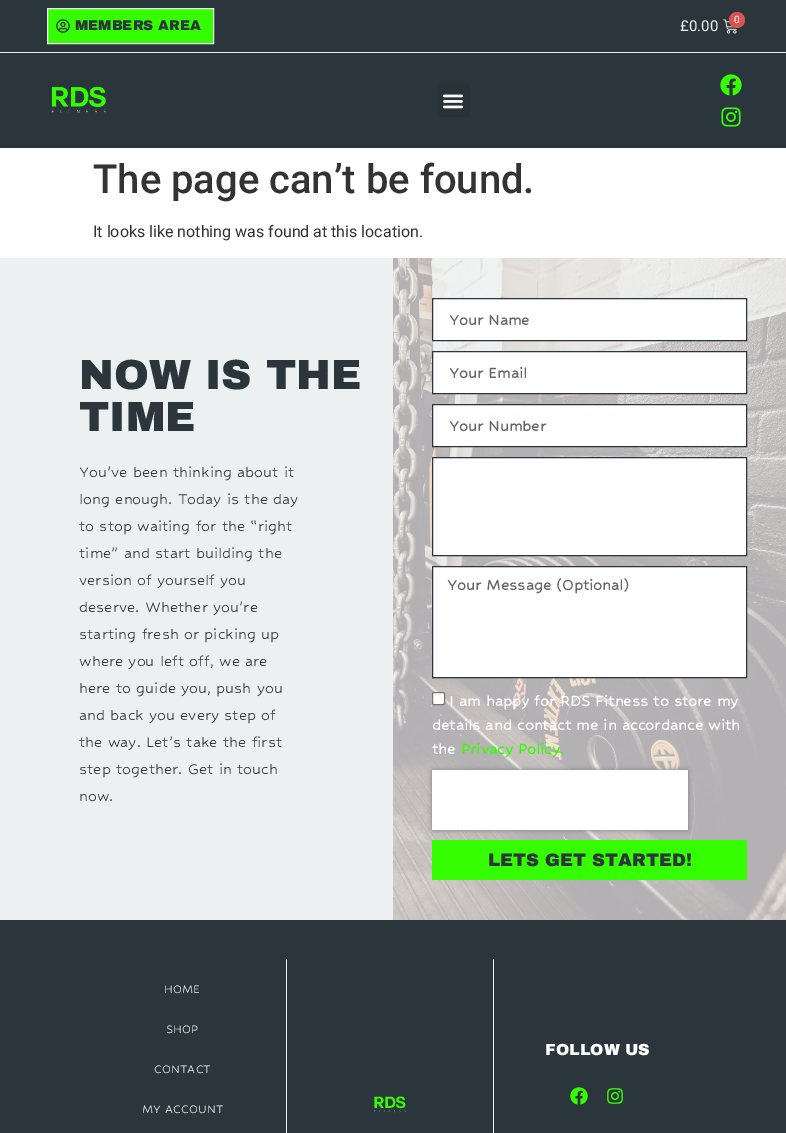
%!PS-Adobe-3.0
%%BoundingBox: 0 0 786 1133
%%LanguageLevel: 3
%%Pages: 1
%%EndComments
%%BeginProlog
/setalpha { dup .setfillconstantalpha .setstrokeconstantalpha } def
/rrect { 5 dict begin { /r /h /w /y /x } { exch def } forall
  x r add y moveto x w add y 2 copy h add r arct x w add y h add x 1 index r arct
  x y h add x y r arct x y 2 copy exch w add exch r arct closepath end } def
/softshadow { 12 dict begin { /a /b /q /h /w /y /x } { exch def } forall gsave /was 0 def
  9 -2 -9 { dup b mul 4 div /e exch def 1 sub .425 mul 2.718 exch exp 1 add a .99 .min exch div /now exch def
    1 1 now sub 1 was sub div sub setalpha /was now def
    w h .min e 2 mul add 0 gt { x e sub y e sub w e 2 mul add h e 2 mul add
      q e add b .6 mul add w h .min 2 div e add .min 0 .max rrect fill } if } for grestore end } def
/drawimage { 5 dict begin { /h /w /y /x /name } { exch def } forall
  gsave x y translate w h scale
  w h 8 [w 0 0 h 0 0] name (r) file false 3 colorimage grestore end } def
%%EndProlog
%%BeginSetup
<< /PageSize [786 1133] /PageUsesTransparency true >> setpagedevice
%%EndSetup
%%Page: 1 1
0 .pushpdf14devicefilter
0 1133 translate 1 -1 scale
4 setmiterlimit
1 setgray
0 0 786 1133 rectfill
0.165 0.212 0.235 setrgbcolor
0 0 786 52 rectfill
0.925 0.941 0.945 setrgbcolor
0 52 786 1 rectfill
0.208 0.996 0 setrgbcolor
newpath 47.5 8.5 moveto 213.5 8.5 lineto 213.5 43.5 lineto 47.5 43.5 lineto closepath gsave fill grestore
0.925 0.941 0.945 setrgbcolor
stroke
(images/1.raw) 56 19 14 14 drawimage
(images/2.raw) 723 19 14 15 drawimage
0.851 0.325 0.31 setrgbcolor
newpath 737 20 8 0 360 arc closepath fill
0.165 0.212 0.235 setrgbcolor
0 53 786 95 rectfill
(images/3.raw) 51 86 55 28 drawimage
0.157 0.2 0.224 setrgbcolor
437 84 33 33 3 rrect fill
(images/4.raw) 442 94 22 15 drawimage
(images/5.raw) 720 74 22 22 drawimage
(images/6.raw) 721 107 20 20 drawimage
0.925 0.941 0.945 setrgbcolor
0 258 393 662 rectfill
(images/7.raw) 393 258 393 662 drawimage
1 setgray
newpath 432.5 298.5 moveto 746.5 298.5 lineto 746.5 340.5 lineto 432.5 340.5 lineto closepath gsave fill grestore
0.165 0.212 0.235 setrgbcolor
stroke
1 setgray
newpath 432.5 351.5 moveto 746.5 351.5 lineto 746.5 393.5 lineto 432.5 393.5 lineto closepath gsave fill grestore
0.165 0.212 0.235 setrgbcolor
stroke
1 setgray
newpath 432.5 404.5 moveto 746.5 404.5 lineto 746.5 446.5 lineto 432.5 446.5 lineto closepath gsave fill grestore
0.165 0.212 0.235 setrgbcolor
stroke
1 setgray
newpath 432.5 457.5 moveto 746.5 457.5 lineto 746.5 555.5 lineto 432.5 555.5 lineto closepath gsave fill grestore
0.165 0.212 0.235 setrgbcolor
stroke
1 setgray
newpath 432.5 566.5 moveto 746.5 566.5 lineto 746.5 677.5 lineto 432.5 677.5 lineto closepath gsave fill grestore
0.165 0.212 0.235 setrgbcolor
stroke
1 setgray
432.5 692.5 12 12 1.5 rrect gsave fill grestore
0.463 setgray
stroke
1 setgray
432 770 256 60 rectfill
gsave
newpath 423 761 moveto 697 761 lineto 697 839 lineto 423 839 lineto closepath 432 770 moveto 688 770 lineto 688 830 lineto 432 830 lineto closepath eoclip newpath
0.502 setgray
432 770 256 60 0 2.5 1 softshadow
grestore
0.208 0.996 0 setrgbcolor
432 840 315 40 rectfill
0.165 0.212 0.235 setrgbcolor
0 920 786 213 rectfill
0.925 0.941 0.945 setrgbcolor
493 959 1 174 rectfill
286 959 1 174 rectfill
(images/8.raw) 374 1096 32 17 drawimage
(images/9.raw) 570 1087 18 18 drawimage
(images/10.raw) 607 1088 16 16 drawimage
/ArchivoBlack-Black [14 0 0 -14 0 0] selectfont
0.165 0.212 0.235 setrgbcolor
75 30 moveto (MEMBERS AREA) show
/Roboto-Regular [15 0 0 -15 0 0] selectfont
0.925 0.941 0.945 setrgbcolor
680 31 moveto (£0.00) show
/Roboto-Regular [10 0 0 -10 0 0] selectfont
1 setgray
734 23 moveto (0) show
/Roboto-Medium [40 0 0 -40 0 0] selectfont
0.2 setgray
93 193 moveto (The page can’t be found.) show
/Roboto-Regular [16 0 0 -16 0 0] selectfont
93 237 moveto (It looks like nothing was found at this location.) show
/ArchivoBlack-Black [42 0 0 -42 0 0] selectfont
0.165 0.212 0.235 setrgbcolor
79 389 moveto (NOW IS THE) show
79 431 moveto (TIME) show
/Hubballi-Regular [18 0 0 -18 0 0] selectfont
0.2 setgray
79 477 moveto (You’ve been thinking about it) show
79 504 moveto (long enough. Today is the day) show
79 531 moveto (to stop waiting for the “right) show
79 558 moveto (time” and start building the) show
79 585 moveto (version of yourself you) show
79 612 moveto (deserve. Whether you’re) show
79 639 moveto (starting fresh or picking up) show
79 666 moveto (where you left off, we are) show
79 693 moveto (here to guide you, push you) show
79 720 moveto (and back you every step of) show
79 747 moveto (the way. Let’s take the first) show
79 774 moveto (step together. Get in touch) show
79 801 moveto (now.) show
/Hubballi-Bold [18 0 0 -18 0 0] selectfont
0.4 setgray
449 325 moveto (Your Name) show
449 378 moveto (Your Email) show
449 431 moveto (Your Number) show
447 590 moveto (Your Message \(Optional\)) show
1 setgray
449 706 moveto (I am happy for RDS Fitness to store my) show
432 730 moveto (details and contact me in accordance with) show
432 754 moveto (the) show
0.208 0.996 0 setrgbcolor
461 754 moveto (Privacy Policy.) show
/ArchivoBlack-Black [18 0 0 -18 0 0] selectfont
0.165 0.212 0.235 setrgbcolor
488 866 moveto (LETS GET STARTED!) show
/Hubballi-Regular [14 0 0 -14 0 0] selectfont
1 setgray
164 993 moveto (HOME) show
166 1033 moveto (SHOP) show
154 1073 moveto (CONTACT) show
142 1113 moveto (MY ACCOUNT) show
/ArchivoBlack-Black [16 0 0 -16 0 0] selectfont
545 1055 moveto (FOLLOW US) show
.poppdf14devicefilter showpage
%%EOF
